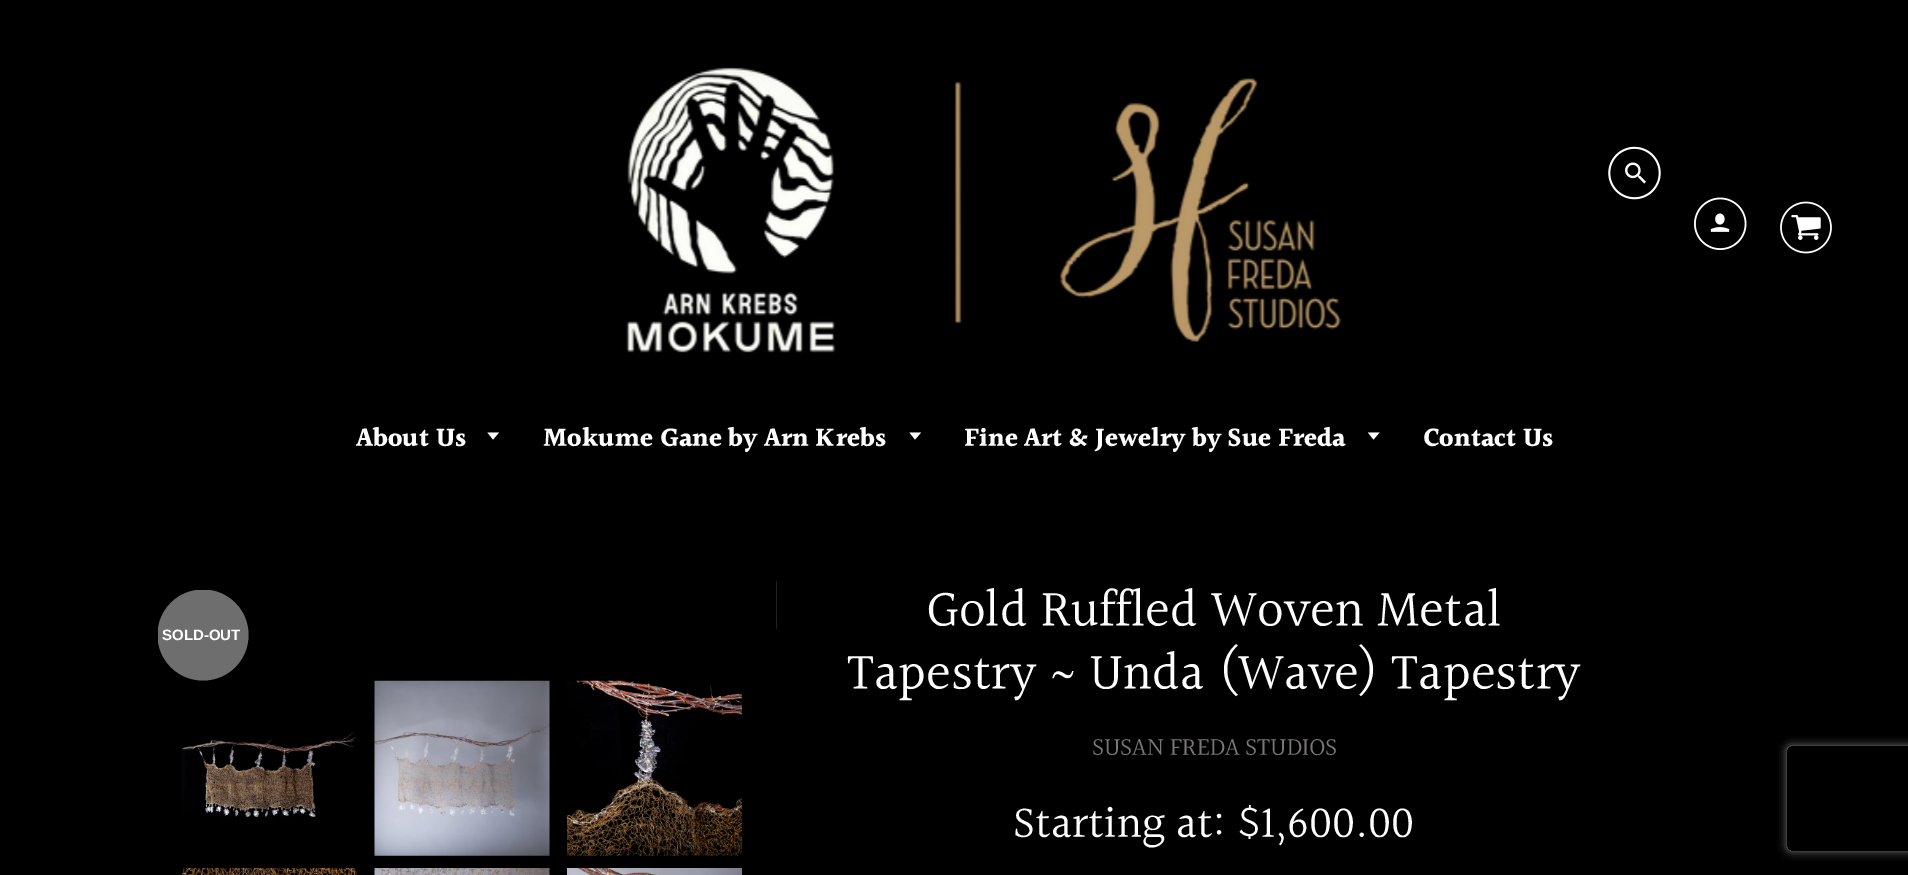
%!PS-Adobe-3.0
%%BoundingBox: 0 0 1908 875
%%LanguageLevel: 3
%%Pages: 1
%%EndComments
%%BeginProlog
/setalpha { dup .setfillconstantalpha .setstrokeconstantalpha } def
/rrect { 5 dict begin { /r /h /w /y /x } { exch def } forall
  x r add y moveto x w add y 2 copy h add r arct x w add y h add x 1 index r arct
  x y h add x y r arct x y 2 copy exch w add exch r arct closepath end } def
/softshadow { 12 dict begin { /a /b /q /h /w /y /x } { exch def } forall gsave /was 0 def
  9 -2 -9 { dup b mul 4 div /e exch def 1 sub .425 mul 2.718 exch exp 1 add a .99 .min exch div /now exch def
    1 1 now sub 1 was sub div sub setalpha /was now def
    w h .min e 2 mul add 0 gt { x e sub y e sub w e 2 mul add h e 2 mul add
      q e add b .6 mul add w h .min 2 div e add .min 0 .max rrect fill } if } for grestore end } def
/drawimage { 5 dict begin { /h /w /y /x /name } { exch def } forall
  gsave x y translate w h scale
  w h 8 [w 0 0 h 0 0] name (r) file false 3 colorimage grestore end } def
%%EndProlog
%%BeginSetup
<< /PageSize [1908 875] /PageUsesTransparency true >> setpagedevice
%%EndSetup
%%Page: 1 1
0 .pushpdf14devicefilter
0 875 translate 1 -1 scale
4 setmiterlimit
0 setgray
0 0 1908 875 rectfill
(images/1.raw) 626 67 716 286 drawimage
(images/2.raw) 1608 146 53 54 drawimage
(images/3.raw) 1694 197 53 53 drawimage
(images/4.raw) 1780 201 52 53 drawimage
1 setgray
newpath 487.5 432.5 moveto 493 439.5 lineto 499 432.5 lineto closepath fill
newpath 909.5 432.5 moveto 915 439.5 lineto 921 432.5 lineto closepath fill
newpath 1368 432.5 moveto 1373.5 439.5 lineto 1379.5 432.5 lineto closepath fill
(images/5.raw) 776 581 1 48 drawimage
gsave
158 590 91 91 rectclip
0.431 setgray
newpath 203 635 45.5 0 360 arc closepath fill
grestore
(images/6.raw) 182 732 174 90 drawimage
(images/7.raw) 374 680 176 176 drawimage
(images/8.raw) 567 680 175 176 drawimage
(images/9.raw) 182 868 175 7 drawimage
(images/10.raw) 374 868 176 7 drawimage
(images/11.raw) 567 868 175 7 drawimage
gsave
newpath 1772 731 moveto 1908 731 lineto 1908 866 lineto 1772 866 lineto closepath 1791 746 moveto 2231 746 lineto 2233 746 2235 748 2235 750 curveto 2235 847 lineto 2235 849 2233 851 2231 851 curveto 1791 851 lineto 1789 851 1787 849 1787 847 curveto 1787 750 lineto 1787 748 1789 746 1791 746 curveto closepath eoclip newpath
0.502 setgray
1787 746 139 105 4 4.5 1 softshadow
grestore
/Halant-Bold [26.25 0 0 -26.25 0 0] selectfont
356 447 moveto (About Us) show
543 447 moveto (Mokume Gane by Arn Krebs) show
964 447 moveto (Fine Art & Jewelry by Sue Freda) show
1423 447 moveto (Contact Us) show
/LiberationSans-Bold [15 0 0 -15 0 0] selectfont
162 640 moveto (SOLD-OUT) show
/Halant-Regular [52.5 0 0 -52.5 0 0] selectfont
926 628 moveto (Gold Ruffled Woven Metal) show
847 691 moveto (Tapestry ~ Unda \(Wave\) Tapestry) show
/Halant-Regular [25.25 0 0 -25.25 0 0] selectfont
0.475 0.467 0.467 setrgbcolor
1092 756 moveto (SUSAN FREDA STUDIOS) show
/Halant-Regular [45.5 0 0 -45.5 0 0] selectfont
1 setgray
1013 839 moveto (Starting at: $1,600.00) show
.poppdf14devicefilter showpage
%%EOF
